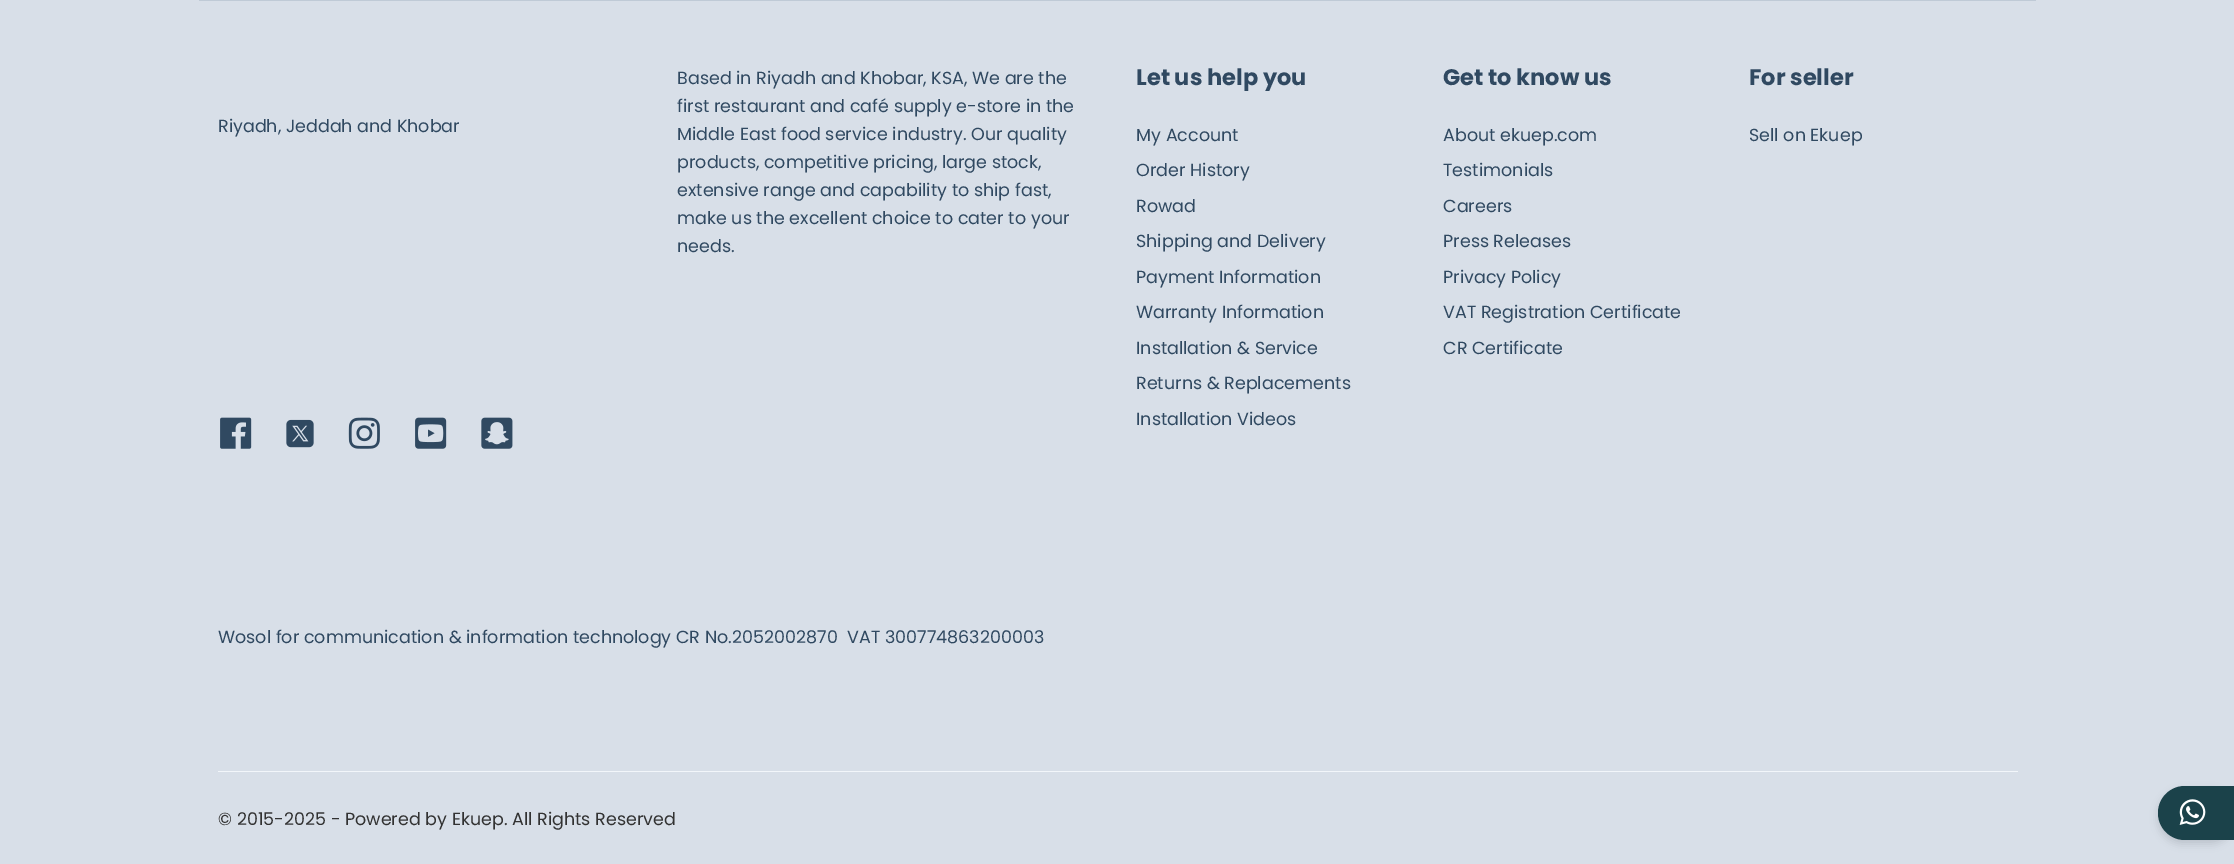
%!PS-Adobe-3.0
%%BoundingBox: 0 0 2234 864
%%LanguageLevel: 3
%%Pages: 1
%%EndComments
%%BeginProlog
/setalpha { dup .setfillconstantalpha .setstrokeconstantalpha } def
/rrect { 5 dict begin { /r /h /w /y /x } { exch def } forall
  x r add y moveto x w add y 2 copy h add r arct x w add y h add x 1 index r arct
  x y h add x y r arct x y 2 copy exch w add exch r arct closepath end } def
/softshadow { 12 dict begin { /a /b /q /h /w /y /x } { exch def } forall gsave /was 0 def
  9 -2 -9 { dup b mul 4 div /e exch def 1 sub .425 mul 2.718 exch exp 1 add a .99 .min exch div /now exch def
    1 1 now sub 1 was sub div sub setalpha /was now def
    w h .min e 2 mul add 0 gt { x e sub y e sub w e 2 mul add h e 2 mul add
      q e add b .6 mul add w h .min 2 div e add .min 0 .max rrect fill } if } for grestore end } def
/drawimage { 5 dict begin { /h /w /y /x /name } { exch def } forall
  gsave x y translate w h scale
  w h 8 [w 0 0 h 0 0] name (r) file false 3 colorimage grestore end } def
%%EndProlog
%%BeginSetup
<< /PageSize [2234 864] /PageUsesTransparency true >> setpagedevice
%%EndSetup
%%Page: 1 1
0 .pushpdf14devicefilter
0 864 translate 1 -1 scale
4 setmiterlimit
0.847 0.875 0.91 setrgbcolor
0 0 2234 864 rectfill
0.749 0.792 0.839 setrgbcolor
199 0 1837 1 rectfill
(images/1.raw) 220 417 32 32 drawimage
(images/2.raw) 286 419 28 29 drawimage
(images/3.raw) 348 417 32 32 drawimage
(images/4.raw) 415 417 32 32 drawimage
(images/5.raw) 481 417 32 32 drawimage
0.949 0.965 0.98 setrgbcolor
218 771 1800 1 rectfill
0 setgray
2158 790 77 54 27 4 0.12 softshadow
0.106 0.259 0.29 setrgbcolor
newpath 2185 786 moveto 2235 786 lineto 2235 840 lineto 2185 840 lineto 2170 840 2158 828 2158 813 curveto 2158 798 2170 786 2185 786 curveto closepath fill
(images/6.raw) 2179 799 27 26 drawimage
/Poppins-Regular [17.5 0 0 -17.5 0 0] selectfont
0.188 0.286 0.38 setrgbcolor
218 132 moveto (Riyadh, Jeddah and Khobar) show
677 84 moveto (Based in Riyadh and Khobar, KSA, We are the) show
677 112 moveto (first restaurant and café supply e-store in the) show
677 140 moveto (Middle East food service industry. Our quality) show
677 168 moveto (products, competitive pricing, large stock,) show
677 196 moveto (extensive range and capability to ship fast,) show
677 224 moveto (make us the excellent choice to cater to your) show
677 252 moveto (needs.) show
/Poppins-Bold [22.5 0 0 -22.5 0 0] selectfont
1136 85 moveto (Let us help you) show
/Poppins-Regular [17.5 0 0 -17.5 0 0] selectfont
1136 141 moveto (My Account) show
1136 176 moveto (Order History) show
1136 212 moveto (Rowad) show
1136 247 moveto (Shipping and Delivery) show
1136 283 moveto (Payment Information) show
1136 318 moveto (Warranty Information) show
1136 354 moveto (Installation & Service) show
1136 389 moveto (Returns & Replacements) show
1136 425 moveto (Installation Videos) show
/Poppins-Bold [22.5 0 0 -22.5 0 0] selectfont
1443 85 moveto (Get to know us) show
/Poppins-Regular [17.5 0 0 -17.5 0 0] selectfont
1443 141 moveto (About ekuep.com) show
1443 176 moveto (Testimonials) show
1443 212 moveto (Careers) show
1443 247 moveto (Press Releases) show
1443 283 moveto (Privacy Policy) show
1443 318 moveto (VAT Registration Certificate) show
1443 354 moveto (CR Certificate) show
/Poppins-Bold [22.5 0 0 -22.5 0 0] selectfont
1749 85 moveto (For seller) show
/Poppins-Regular [17.5 0 0 -17.5 0 0] selectfont
1749 141 moveto (Sell on Ekuep) show
218 643 moveto (Wosol for communication & information technology CR No.2052002870) show
847 643 moveto (VAT 300774863200003) show
0.196 setgray
218 825 moveto (© 2015-2025 - Powered by Ekuep. All Rights Reserved) show
.poppdf14devicefilter showpage
%%EOF
